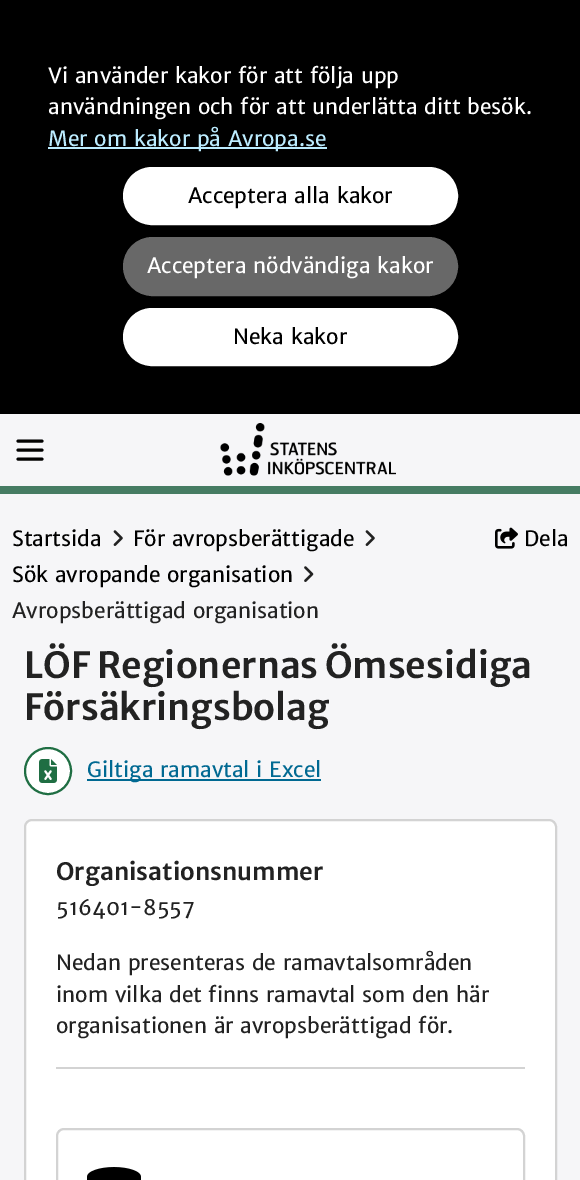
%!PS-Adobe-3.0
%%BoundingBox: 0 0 580 1180
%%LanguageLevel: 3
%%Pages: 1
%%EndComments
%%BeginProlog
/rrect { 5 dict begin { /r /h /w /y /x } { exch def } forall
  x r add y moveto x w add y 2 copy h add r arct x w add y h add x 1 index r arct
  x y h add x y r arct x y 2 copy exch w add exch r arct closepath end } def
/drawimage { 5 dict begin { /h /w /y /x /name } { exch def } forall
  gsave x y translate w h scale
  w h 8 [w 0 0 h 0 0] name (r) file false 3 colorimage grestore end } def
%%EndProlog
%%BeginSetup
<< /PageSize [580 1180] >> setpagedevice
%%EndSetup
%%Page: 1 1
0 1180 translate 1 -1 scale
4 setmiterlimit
0.965 0.965 0.973 setrgbcolor
0 0 580 1180 rectfill
0 setgray
0 0 580 414 rectfill
0.737 0.925 1 setrgbcolor
48 147 279 2 rectfill
1 setgray
124 168 333 56 28 rrect gsave fill grestore
2 setlinewidth
stroke
0.408 setgray
124 238 333 57 28.5 rrect gsave fill grestore
stroke
1 setgray
124 309 333 56 28 rrect gsave fill grestore
stroke
0.275 0.486 0.388 setrgbcolor
0 486 580 8 rectfill
0 setgray
3 setlinewidth
1 setlinecap
1 setlinejoin
newpath 18 441 moveto 42 441 lineto 18 450 moveto 42 450 lineto 18 459 moveto 42 459 lineto stroke
(images/1.raw) 220 423 176 53 drawimage
(images/2.raw) 113 530 10 16 drawimage
(images/2.raw) 365 530 10 16 drawimage
(images/3.raw) 304 566 10 16 drawimage
(images/4.raw) 495 527 23 22 drawimage
1 setgray
newpath 48 771 23 0 360 arc closepath gsave fill grestore
0.122 0.431 0.263 setrgbcolor
2 setlinewidth
0 setlinecap
0 setlinejoin
stroke
(images/5.raw) 39 759 18 24 drawimage
0 0.412 0.573 setrgbcolor
87 779 234 2 rectfill
1 setgray
25 820 531 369 7 rrect gsave fill grestore
0.827 setgray
stroke
56 1067 469 2 rectfill
57 1129 467 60 7 rrect stroke
(images/6.raw) 87 1167 54 13 drawimage
/MerriweatherSans-Regular [21 0 0 -21 0 0] selectfont
1 setgray
48 83 moveto (Vi använder kakor för att följa upp) show
48 114 moveto (användningen och för att underlätta ditt besök.) show
0.737 0.925 1 setrgbcolor
48 146 moveto (Mer om kakor på Avropa.se) show
0 setgray
188 203 moveto (Acceptera alla kakor) show
1 setgray
147 273 moveto (Acceptera nödvändiga kakor) show
0 setgray
233 344 moveto (Neka kakor) show
12 546 moveto (Startsida) show
133 546 moveto (För avropsberättigade) show
12 582 moveto (Sök avropande organisation) show
0.133 setgray
12 618 moveto (Avropsberättigad organisation) show
0 setgray
524 546 moveto (Dela) show
/MerriweatherSans-SemiBold [36 0 0 -36 0 0] selectfont
0.133 setgray
24 678 moveto (LÖF Regionernas Ömsesidiga) show
24 720 moveto (Försäkringsbolag) show
/MerriweatherSans-Regular [21 0 0 -21 0 0] selectfont
0 0.412 0.573 setrgbcolor
87 777 moveto (Giltiga ramavtal i Excel) show
/MerriweatherSans-SemiBold [24 0 0 -24 0 0] selectfont
0.133 setgray
56 880 moveto (Organisationsnummer) show
/MerriweatherSans-Regular [21 0 0 -21 0 0] selectfont
56 915 moveto (516401-8557) show
56 970 moveto (Nedan presenteras de ramavtalsområden) show
56 1002 moveto (inom vilka det finns ramavtal som den här) show
56 1033 moveto (organisationen är avropsberättigad för.) show
showpage
%%EOF
